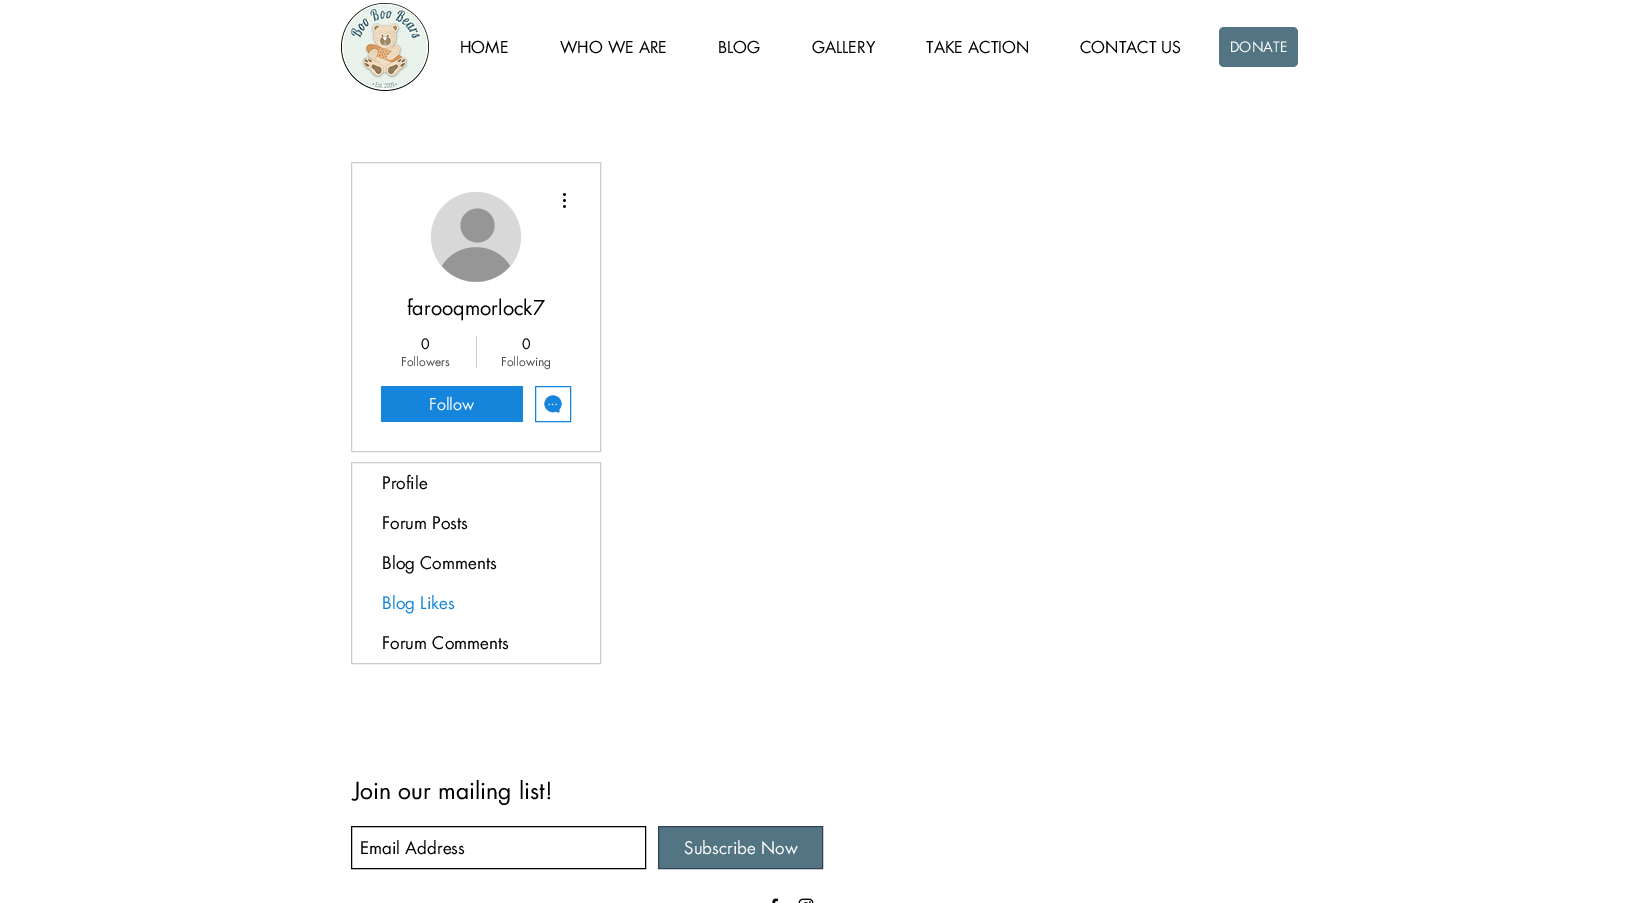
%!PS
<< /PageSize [1642 903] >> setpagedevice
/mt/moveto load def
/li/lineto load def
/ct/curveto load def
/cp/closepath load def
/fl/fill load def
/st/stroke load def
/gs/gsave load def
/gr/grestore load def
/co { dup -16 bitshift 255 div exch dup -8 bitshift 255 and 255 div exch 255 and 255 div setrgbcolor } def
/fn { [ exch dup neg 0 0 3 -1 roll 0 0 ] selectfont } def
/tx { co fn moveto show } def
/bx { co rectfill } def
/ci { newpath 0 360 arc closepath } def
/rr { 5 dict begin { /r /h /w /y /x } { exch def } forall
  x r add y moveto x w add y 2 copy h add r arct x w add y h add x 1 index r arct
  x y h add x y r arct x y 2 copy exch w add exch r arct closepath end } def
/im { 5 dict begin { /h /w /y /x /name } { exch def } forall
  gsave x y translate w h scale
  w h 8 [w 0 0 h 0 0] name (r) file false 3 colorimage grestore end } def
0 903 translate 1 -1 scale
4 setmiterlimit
0 0 1642 903 16#FFFFFF bx
(media/1.raw) 341 3 88 88 im
16#537583 co
1219 27 79 40 5 rr fl
16#CCCCCC co
351.5 162.5 249 289 rectstroke
16#D8D8D8 co
476 237 45 ci fl
16#969696 co
477.5 225.5 17 ci fl
510 266 mt 492 287 460 287 442 266 ct 457 241 495 241 510 266 ct cp fl
(media/2.raw) 563 193 3 15 im
476 336 1 32 16#CCCCCC bx
381 386 142 36 16#1585DB bx
535.5 386.5 35 35 rectstroke
(media/3.raw) 544 395 18 18 im
16#CCCCCC co
351.5 462.5 249 201 rectstroke
16#000000 co
351.5 826.5 294 42 rectstroke
16#537583 co
658.5 826.5 mt 822.5 826.5 li 822.5 868.5 li 658.5 868.5 li cp gs fl gr
16#324158 co
st
(media/4.raw) 772 898 7 5 im
(media/5.raw) 798 898 16 5 im
(HOME) 460 53 /futura-Regular 16 16#000000 tx
(WHO WE ARE) 560 53 /futura-Regular 16 16#000000 tx
(BLOG) 718 53 /futura-Regular 16 16#000000 tx
(GALLERY) 812 53 /futura-Regular 16 16#000000 tx
(TAKE ACTION) 926 53 /futura-Regular 16 16#000000 tx
(CONTACT US) 1080 53 /futura-Regular 16 16#000000 tx
(DONATE) 1230 52 /futura-Regular 14 16#FFFFFF tx
(farooqmorlock7) 407 315 /futura-Regular 20 16#000000 tx
(0) 421 349 /futura-Regular 14 16#000000 tx
(Followers) 401 366 /futura-Regular 12 16#4D4D4D tx
(0) 522 349 /futura-Regular 14 16#000000 tx
(Following) 501 366 /futura-Regular 12 16#4D4D4D tx
(Follow) 429 410 /futura-Regular 16 16#FFFFFF tx
(Profile) 382 489 /futura-Regular 17 16#000000 tx
(Forum Posts) 382 529 /futura-Regular 17 16#000000 tx
(Blog Comments) 382 569 /futura-Regular 17 16#000000 tx
(Blog Likes) 382 609 /futura-Regular 17 16#1585DB tx
(Forum Comments) 382 649 /futura-Regular 17 16#000000 tx
(Join our mailing list!) 353 799 /futura-Regular 23 16#000000 tx
(Email Address) 360 854 /futura-Regular 17 16#000000 tx
(Subscribe Now) 684 854 /futura-Regular 17 16#FFFFFF tx
showpage
